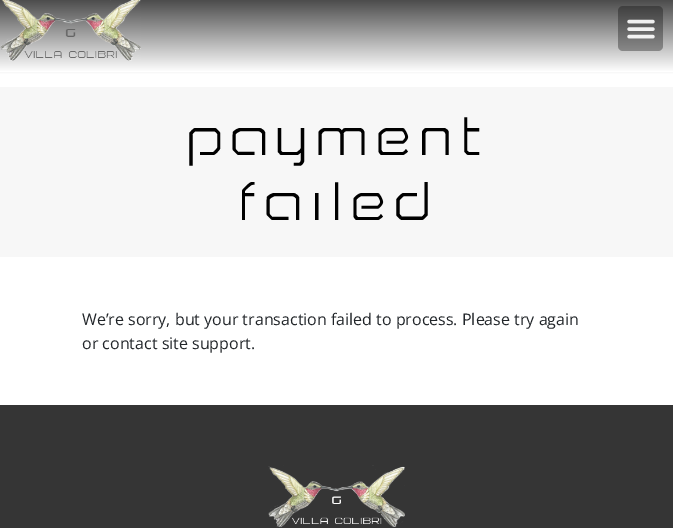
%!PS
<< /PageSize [673 528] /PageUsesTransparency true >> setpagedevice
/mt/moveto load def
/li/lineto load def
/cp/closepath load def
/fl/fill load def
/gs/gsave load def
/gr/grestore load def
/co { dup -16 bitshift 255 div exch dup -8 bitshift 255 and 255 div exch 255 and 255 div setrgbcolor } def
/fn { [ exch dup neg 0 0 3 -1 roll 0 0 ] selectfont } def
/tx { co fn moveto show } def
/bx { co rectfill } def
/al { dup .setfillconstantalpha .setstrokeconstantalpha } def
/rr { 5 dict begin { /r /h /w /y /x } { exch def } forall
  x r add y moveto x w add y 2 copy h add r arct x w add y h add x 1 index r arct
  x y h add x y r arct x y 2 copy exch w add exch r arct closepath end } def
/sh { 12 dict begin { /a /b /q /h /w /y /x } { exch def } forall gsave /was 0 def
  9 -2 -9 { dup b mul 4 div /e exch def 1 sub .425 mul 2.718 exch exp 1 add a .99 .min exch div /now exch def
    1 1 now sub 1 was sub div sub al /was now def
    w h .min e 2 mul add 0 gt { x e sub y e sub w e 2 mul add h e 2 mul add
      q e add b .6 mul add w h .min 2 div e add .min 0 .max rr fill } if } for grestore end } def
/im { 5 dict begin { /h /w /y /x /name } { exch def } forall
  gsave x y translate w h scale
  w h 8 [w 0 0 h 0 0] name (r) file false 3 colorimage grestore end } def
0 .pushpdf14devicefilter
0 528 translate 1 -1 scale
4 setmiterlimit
0 0 673 528 16#FFFFFF bx
16#000000 co
0 -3 673 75 0 1 .09 sh
gs 0 0 mt 673 0 li 673 72 li 0 72 li cp clip newpath
<< /ShadingType 2 /ColorSpace /DeviceRGB /Coords [337 -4 337 72] /Extend [true true] /Function << /FunctionType 2 /Domain [0 1] /C0 [.259 .259 .259] /C1 [1 1 1] /N 1 >> >> shfill gr
(media/1.raw) 0 0 141 61 im
0.35 al
16#0C0C0C co
618 6 45 45 5 rr fl
1 al
(media/2.raw) 627 19 28 20 im
0 87 673 170 16#F7F7F7 bx
0 405 673 123 16#353535 bx
(media/3.raw) 268 465 137 63 im
/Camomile-Regular 54 fn
16#000000 co
184 155 mt 4 0 (PAYMENT) ashow
235 220 mt 4 0 (FAILED) ashow
(We’re sorry, but your transaction failed to process. Please try again) 82 325 /OpenSans-Regular 16 16#212529 tx
(or contact site support.) 82 349 /OpenSans-Regular 16 16#212529 tx
.poppdf14devicefilter showpage
